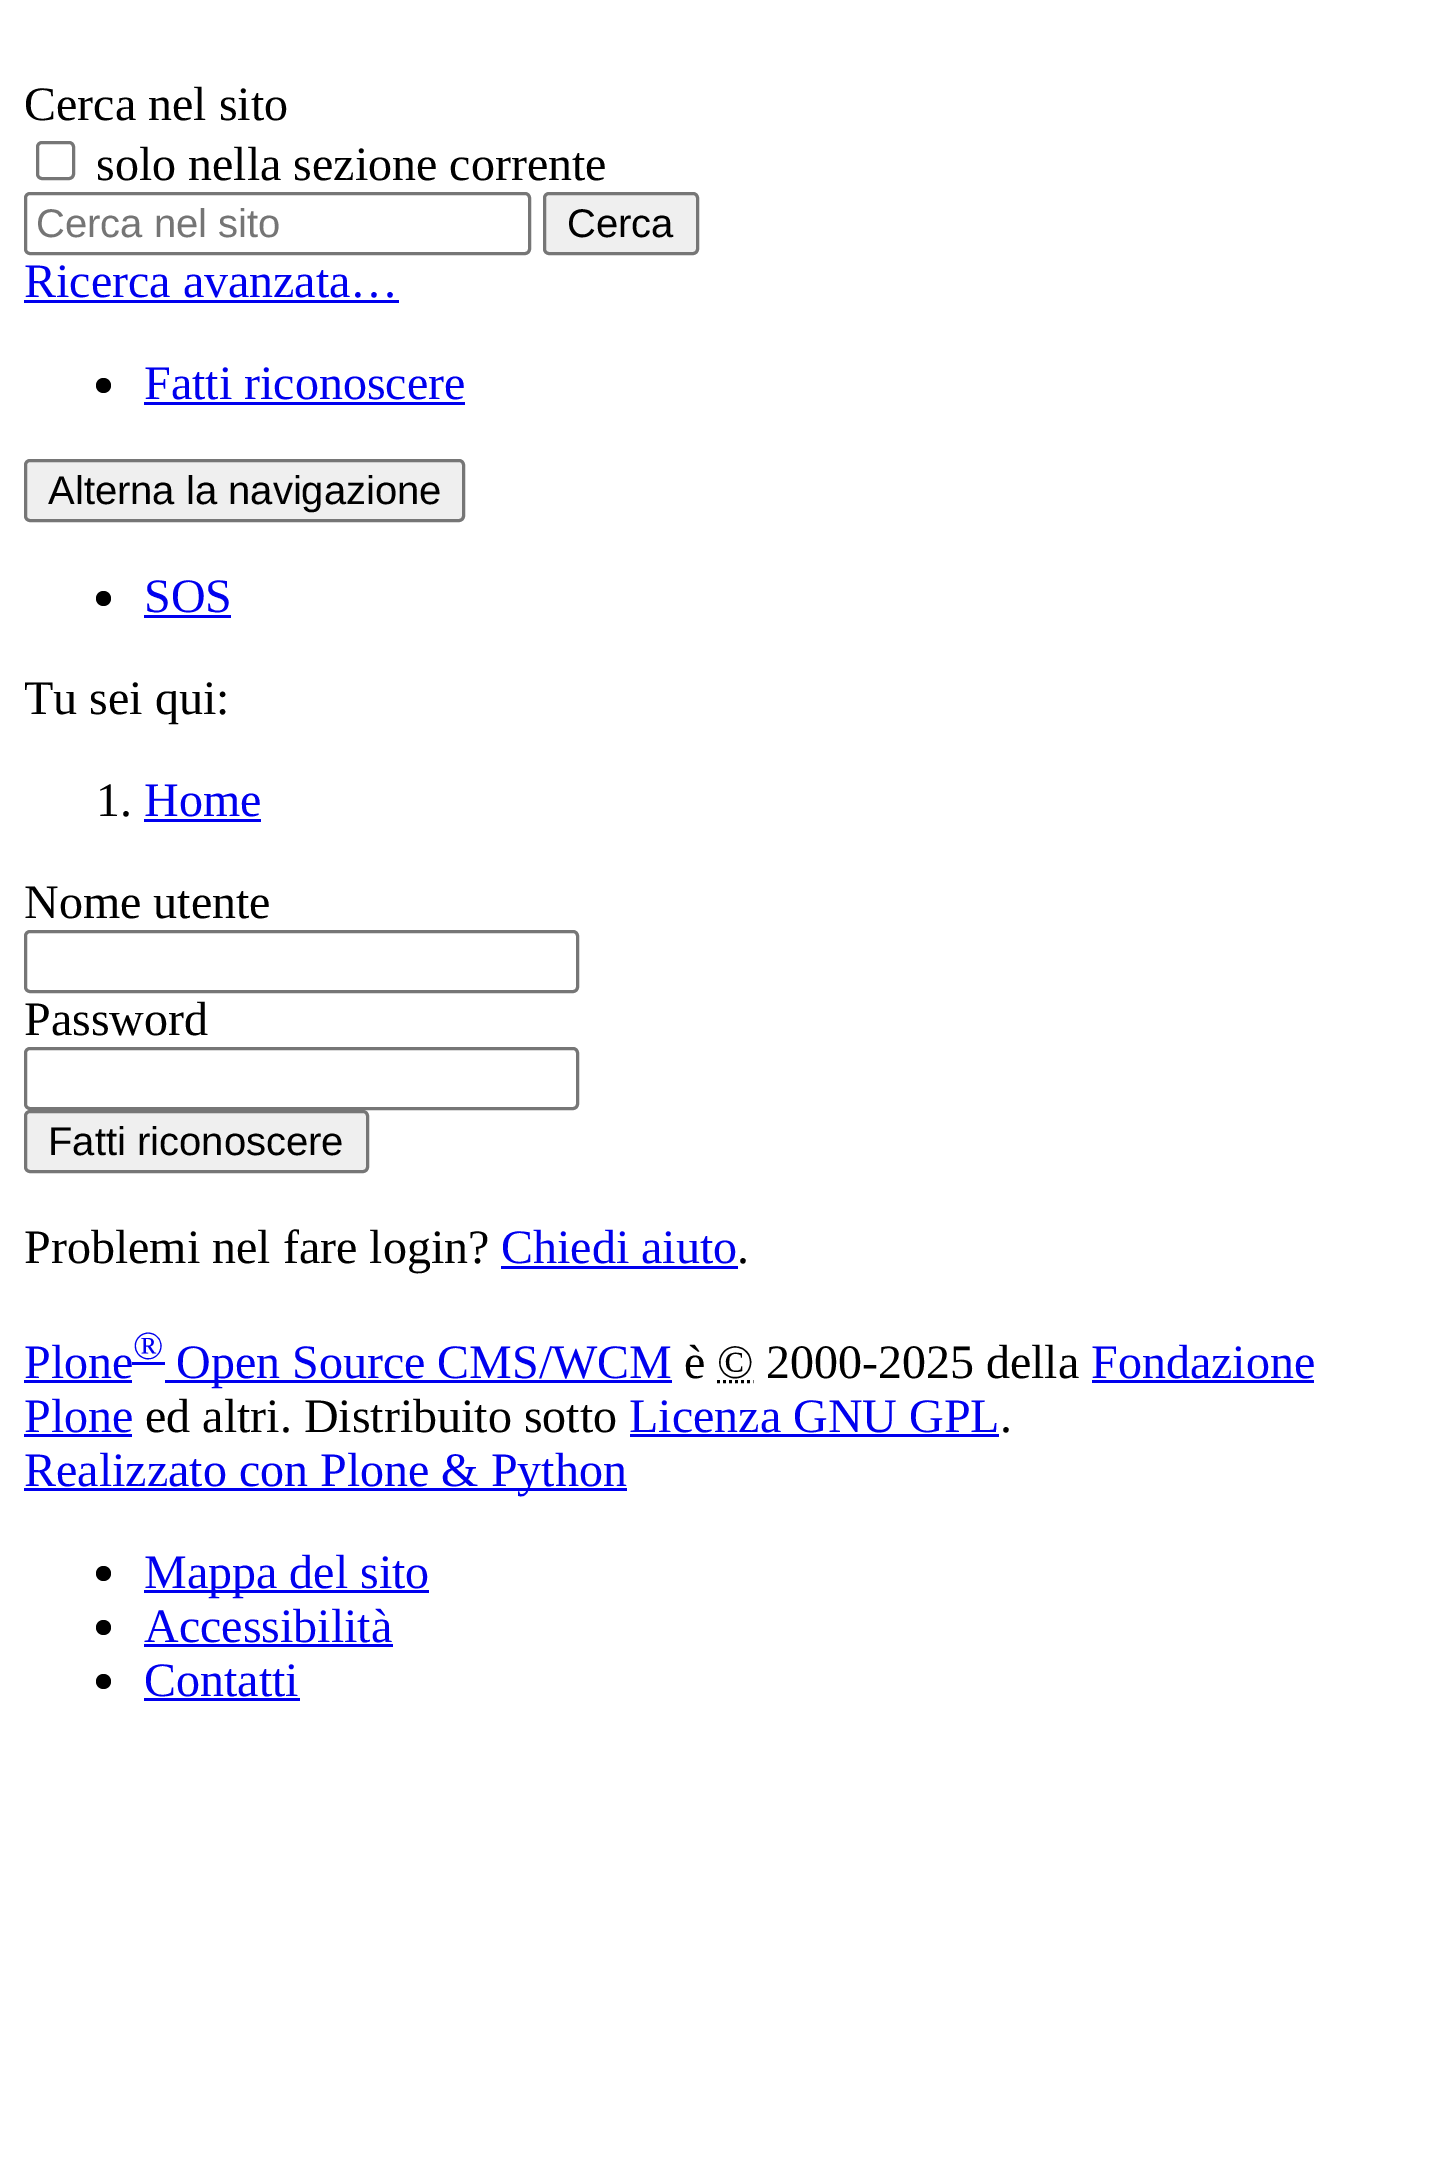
%!PS
<< /PageSize [1450 2159] >> setpagedevice
/mt/moveto load def
/li/lineto load def
/fl/fill load def
/st/stroke load def
/gs/gsave load def
/gr/grestore load def
/lw/setlinewidth load def
/co { dup -16 bitshift 255 div exch dup -8 bitshift 255 and 255 div exch 255 and 255 div setrgbcolor } def
/fn { [ exch dup neg 0 0 3 -1 roll 0 0 ] selectfont } def
/tx { co fn moveto show } def
/bx { co rectfill } def
/ci { newpath 0 360 arc closepath } def
/rr { 5 dict begin { /r /h /w /y /x } { exch def } forall
  x r add y moveto x w add y 2 copy h add r arct x w add y h add x 1 index r arct
  x y h add x y r arct x y 2 copy exch w add exch r arct closepath end } def
0 2159 translate 1 -1 scale
4 setmiterlimit
0 0 1450 2159 16#FFFFFF bx
16#767676 co
3 lw
37.5 142.5 36 36 4.5 rr st
25.5 193.5 504 60 4.5 rr st
16#EFEFEF co
544.5 193.5 153 60 4.5 rr gs fl gr
16#767676 co
st
24 300 375 3 16#0000EE bx
16#000000 co
103.5 385.5 7.5 ci fl
144 402 321 3 16#0000EE bx
16#EFEFEF co
25.5 460.5 438 60 4.5 rr gs fl gr
16#767676 co
st
16#000000 co
103.5 598.5 7.5 ci fl
144 615 87 3 16#0000EE bx
144 819 117 3 16#0000EE bx
16#767676 co
25.5 931.5 552 60 4.5 rr st
25.5 1048.5 552 60 4.5 rr st
16#EFEFEF co
25.5 1111.5 342 60 4.5 rr gs fl gr
16#767676 co
st
501 1266 237 3 16#0000EE bx
24 1380 108 3 16#0000EE bx
132 1362 33 3 16#0000EE bx
165 1380 507 3 16#0000EE bx
1092 1380 222 3 16#0000EE bx
16#000000 co
[3 3] 0 setdash
717 1381.5 mt 753.5 1381.5 li st
24 1434 108 3 16#0000EE bx
630 1434 369 3 16#0000EE bx
24 1488 603 3 16#0000EE bx
16#000000 co
103.5 1573.5 7.5 ci fl
144 1590 285 3 16#0000EE bx
16#000000 co
103.5 1627.5 7.5 ci fl
144 1644 249 3 16#0000EE bx
16#000000 co
103.5 1681.5 7.5 ci fl
144 1698 156 3 16#0000EE bx
(Cerca nel sito) 24 120 /LiberationSerif-Regular 48 16#000000 tx
(solo nella sezione corrente) 96 180 /LiberationSerif-Regular 48 16#000000 tx
(Cerca nel sito) 36 237 /LiberationSans-Regular 40 16#757575 tx
(Cerca) 567 237 /LiberationSans-Regular 40 16#000000 tx
(Ricerca avanzata…) 24 297 /LiberationSerif-Regular 48 16#0000EE tx
(Fatti riconoscere) 144 399 /LiberationSerif-Regular 48 16#0000EE tx
(Alterna la navigazione) 48 504 /LiberationSans-Regular 40 16#000000 tx
(SOS) 144 612 /LiberationSerif-Regular 48 16#0000EE tx
(Tu sei qui:) 24 714 /LiberationSerif-Regular 48 16#000000 tx
(1.) 96 816 /LiberationSerif-Regular 48 16#000000 tx
(Home) 144 816 /LiberationSerif-Regular 48 16#0000EE tx
(Nome utente) 24 918 /LiberationSerif-Regular 48 16#000000 tx
(Password) 24 1035 /LiberationSerif-Regular 48 16#000000 tx
(Fatti riconoscere) 48 1155 /LiberationSans-Regular 40 16#000000 tx
(Problemi nel fare login?) 24 1263 /LiberationSerif-Regular 48 16#000000 tx
(Chiedi aiuto) 501 1263 /LiberationSerif-Regular 48 16#0000EE tx
(.) 737 1263 /LiberationSerif-Regular 48 16#000000 tx
(Plone) 24 1378 /LiberationSerif-Regular 48 16#0000EE tx
(®) 133 1359 /LiberationSerif-Regular 40 16#0000EE tx
(Open Source CMS/WCM) 176 1378 /LiberationSerif-Regular 48 16#0000EE tx
(è © 2000-2025 della) 684 1378 /LiberationSerif-Regular 48 16#000000 tx
(Fondazione) 1091 1378 /LiberationSerif-Regular 48 16#0000EE tx
(Plone) 24 1432 /LiberationSerif-Regular 48 16#0000EE tx
(ed altri. Distribuito sotto) 145 1432 /LiberationSerif-Regular 48 16#000000 tx
(Licenza GNU GPL) 629 1432 /LiberationSerif-Regular 48 16#0000EE tx
(.) 1000 1432 /LiberationSerif-Regular 48 16#000000 tx
(Realizzato con Plone & Python) 24 1486 /LiberationSerif-Regular 48 16#0000EE tx
(Mappa del sito) 144 1588 /LiberationSerif-Regular 48 16#0000EE tx
(Accessibilità) 144 1642 /LiberationSerif-Regular 48 16#0000EE tx
(Contatti) 144 1696 /LiberationSerif-Regular 48 16#0000EE tx
showpage
